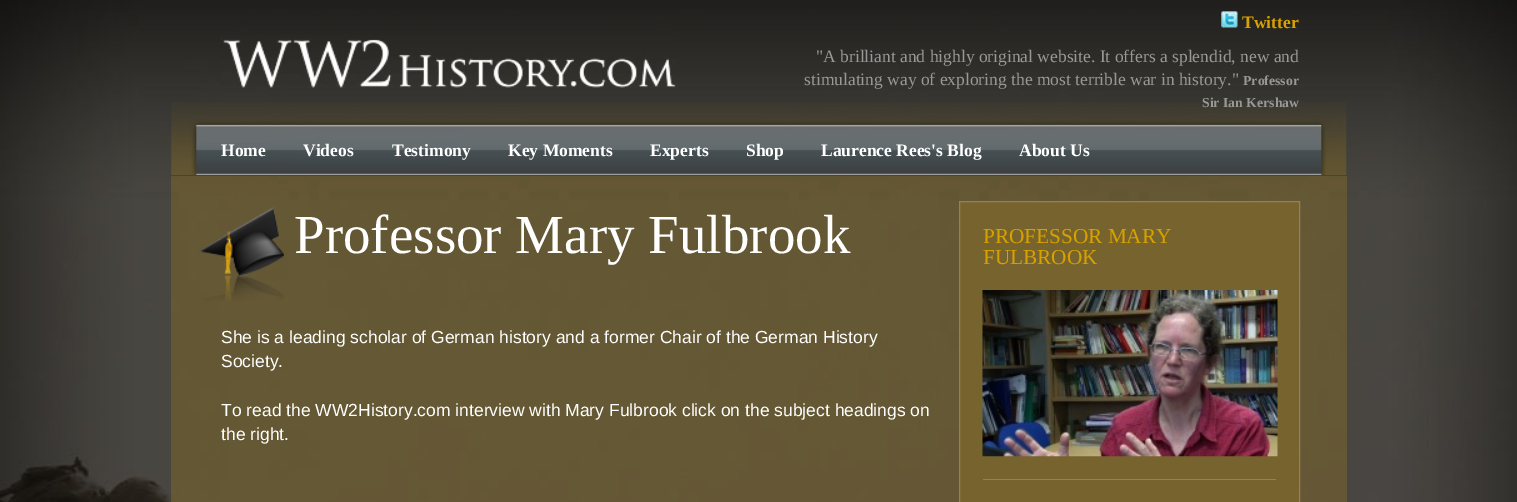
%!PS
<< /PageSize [1517 502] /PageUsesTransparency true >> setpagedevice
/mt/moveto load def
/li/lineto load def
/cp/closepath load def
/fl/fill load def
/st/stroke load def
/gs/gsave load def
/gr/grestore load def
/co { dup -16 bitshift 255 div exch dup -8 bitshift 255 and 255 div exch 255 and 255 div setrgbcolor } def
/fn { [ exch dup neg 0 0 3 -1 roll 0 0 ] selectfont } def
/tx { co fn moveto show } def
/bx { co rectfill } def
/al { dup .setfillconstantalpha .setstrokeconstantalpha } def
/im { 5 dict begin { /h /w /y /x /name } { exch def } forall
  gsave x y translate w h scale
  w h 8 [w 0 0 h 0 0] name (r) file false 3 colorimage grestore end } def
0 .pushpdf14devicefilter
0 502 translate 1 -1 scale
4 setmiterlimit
0 0 1517 502 16#FFFFFF bx
(media/1.raw) 0 0 1517 502 im
(media/2.raw) 171 102 1176 73 im
(media/3.raw) 1221 11 17 17 im
(media/4.raw) 221 36 455 52 im
0.2 al
171 176 1176 326 16#D7A000 bx
1 al
(media/5.raw) 200 207 84 94 im
16#77632E co
959.5 201.5 mt 1299.5 201.5 li 1299.5 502.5 li 959.5 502.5 li cp gs fl gr
16#918257 co
st
(media/6.raw) 982 290 296 167 im
983 479 293 1 16#918257 bx
(Twitter) 1242 28 /LiberationSerif-Bold 17.5 16#D7A100 tx
("A brilliant and highly original website. It offers a splendid, new and) 816 62 /LiberationSerif-Regular 17.5 16#989896 tx
(stimulating way of exploring the most terrible war in history.") 804 85 /LiberationSerif-Regular 17.5 16#989896 tx
(Professor) 1243 85 /LiberationSerif-Bold 13.75 16#989896 tx
(Sir Ian Kershaw) 1202 107 /LiberationSerif-Bold 13.75 16#989896 tx
(Home) 221 156 /LiberationSerif-Bold 17.5 16#FFFFFF tx
(Videos) 303 156 /LiberationSerif-Bold 17.5 16#FFFFFF tx
(Testimony) 392 156 /LiberationSerif-Bold 17.5 16#FFFFFF tx
(Key Moments) 508 156 /LiberationSerif-Bold 17.5 16#FFFFFF tx
(Experts) 650 156 /LiberationSerif-Bold 17.5 16#FFFFFF tx
(Shop) 746 156 /LiberationSerif-Bold 17.5 16#FFFFFF tx
(Laurence Rees's Blog) 821 156 /LiberationSerif-Bold 17.5 16#FFFFFF tx
(About Us) 1019 156 /LiberationSerif-Bold 17.5 16#FFFFFF tx
(Professor Mary Fulbrook) 294 253 /LiberationSerif-Regular 55 16#FFFFFF tx
(She is a leading scholar of German history and a former Chair of the German History) 221 343 /LiberationSans-Regular 17.5 16#FFFFFF tx
(Society.) 221 367 /LiberationSans-Regular 17.5 16#FFFFFF tx
(To read the WW2History.com interview with Mary Fulbrook click on the subject headings on) 221 416 /LiberationSans-Regular 17.5 16#FFFFFF tx
(the right.) 221 440 /LiberationSans-Regular 17.5 16#FFFFFF tx
(PROFESSOR MARY) 983 243 /LiberationSerif-Regular 21.25 16#D7A100 tx
(FULBROOK) 983 264 /LiberationSerif-Regular 21.25 16#D7A100 tx
.poppdf14devicefilter showpage
